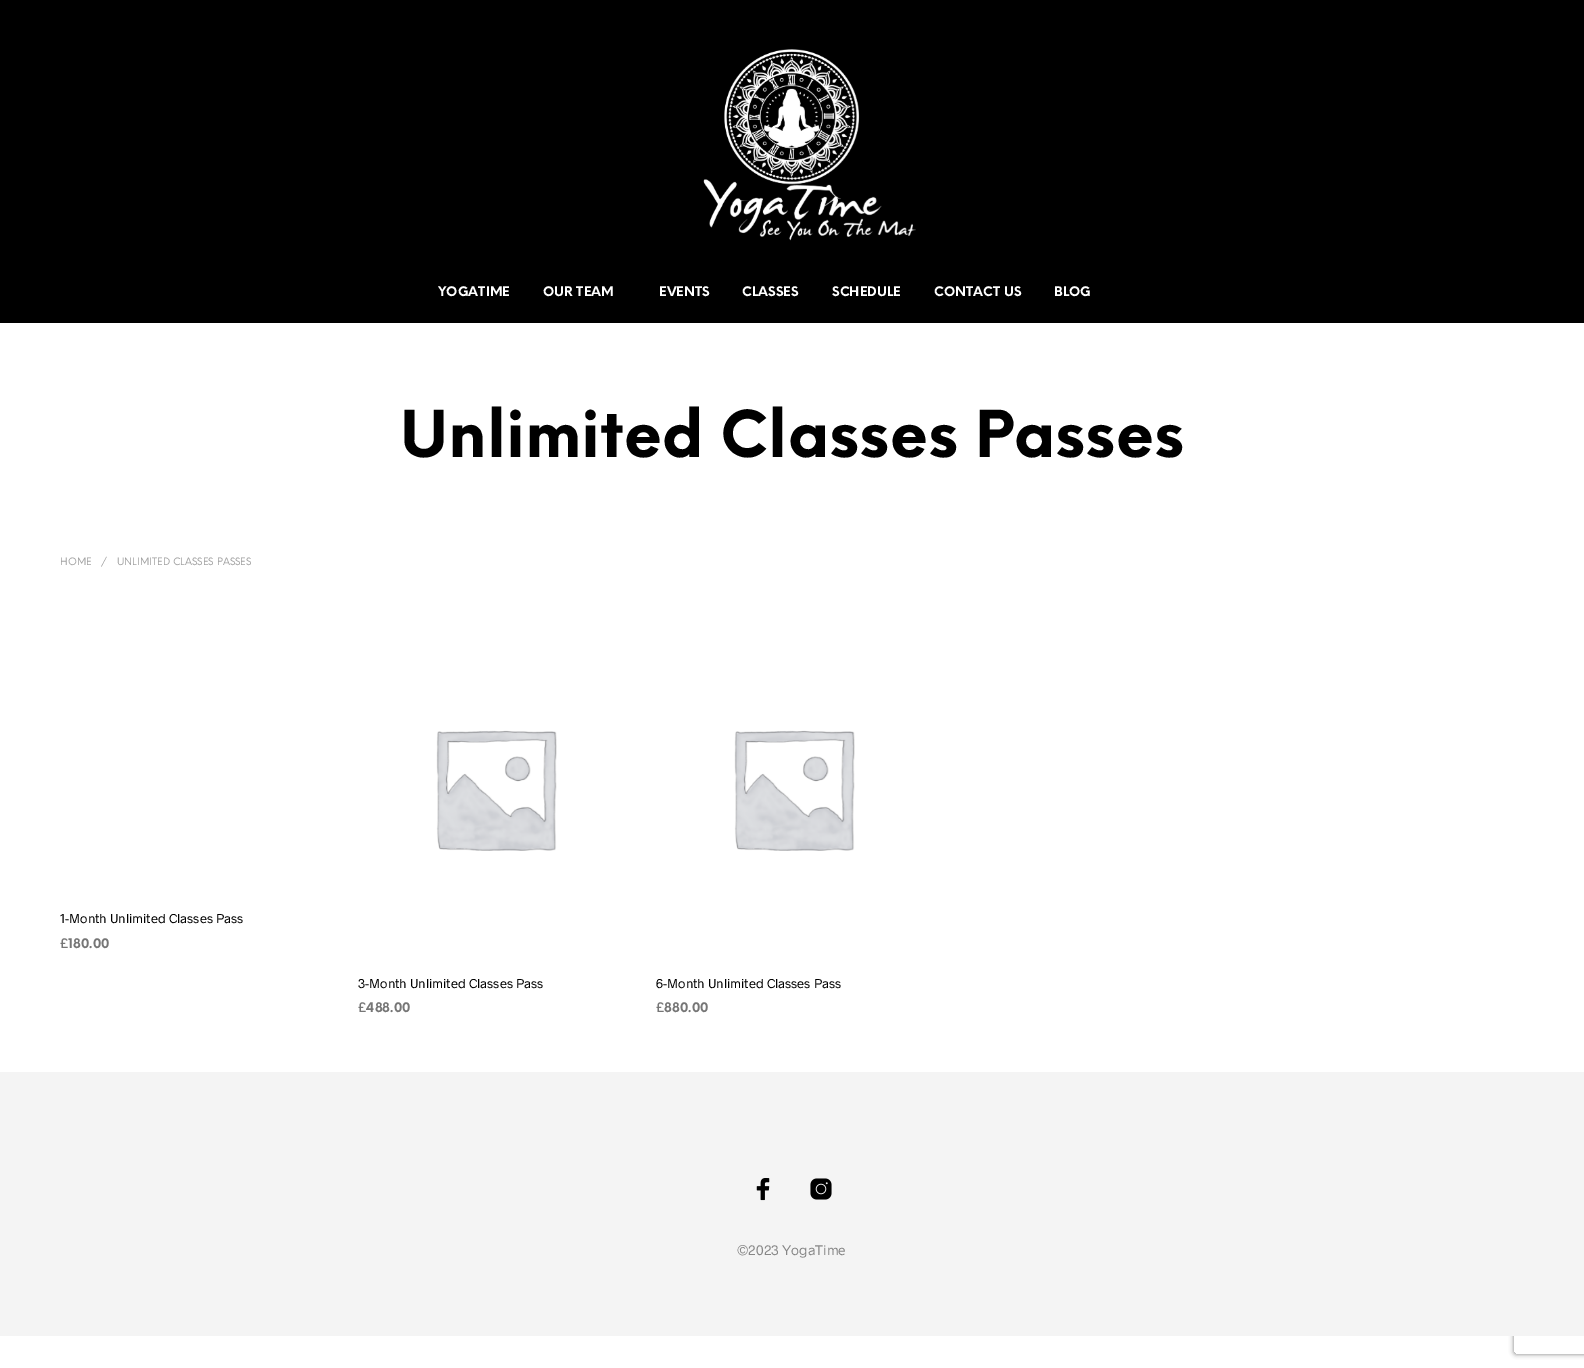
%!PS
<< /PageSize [1584 1368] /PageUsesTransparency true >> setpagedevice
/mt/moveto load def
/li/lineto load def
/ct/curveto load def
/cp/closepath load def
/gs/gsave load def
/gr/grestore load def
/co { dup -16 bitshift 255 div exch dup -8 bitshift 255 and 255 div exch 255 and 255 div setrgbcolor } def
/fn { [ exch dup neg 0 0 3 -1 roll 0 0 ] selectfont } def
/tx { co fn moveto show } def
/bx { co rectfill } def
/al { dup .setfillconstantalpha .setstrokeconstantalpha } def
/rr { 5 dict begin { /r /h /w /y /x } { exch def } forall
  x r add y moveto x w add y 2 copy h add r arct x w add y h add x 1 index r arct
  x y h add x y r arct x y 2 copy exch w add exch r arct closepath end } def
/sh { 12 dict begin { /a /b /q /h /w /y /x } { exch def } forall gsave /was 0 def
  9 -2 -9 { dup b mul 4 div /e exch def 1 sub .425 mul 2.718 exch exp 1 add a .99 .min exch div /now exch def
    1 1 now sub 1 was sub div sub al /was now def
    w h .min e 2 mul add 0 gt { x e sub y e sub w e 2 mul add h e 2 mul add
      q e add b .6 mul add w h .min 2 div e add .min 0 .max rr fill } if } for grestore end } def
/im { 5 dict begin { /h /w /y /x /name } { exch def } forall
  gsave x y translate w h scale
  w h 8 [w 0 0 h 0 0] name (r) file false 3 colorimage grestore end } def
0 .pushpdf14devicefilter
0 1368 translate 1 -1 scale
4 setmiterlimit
0 0 1584 1368 16#FFFFFF bx
0 0 1584 323 16#000000 bx
(media/1.raw) 703 49 213 192 im
(media/2.raw) 436 730 121 121 im
(media/2.raw) 734 730 121 121 im
gs
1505 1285 mt 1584 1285 li 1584 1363 li 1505 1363 li cp 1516 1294 mt 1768 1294 li 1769 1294 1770 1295 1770 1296 ct 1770 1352 li 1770 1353 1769 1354 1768 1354 ct 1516 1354 li 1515 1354 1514 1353 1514 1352 ct 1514 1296 li 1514 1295 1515 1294 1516 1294 ct cp eoclip newpath
16#808080 co
1514 1294 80 60 2 2.5 1 sh
gr
0 1072 1584 264 16#F4F4F4 bx
(media/3.raw) 756 1178 14 23 im
(media/4.raw) 810 1178 22 22 im
(YOGATIME) 438 296 /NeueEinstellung-Bold 13 16#FFFFFF tx
(OUR TEAM) 543 296 /NeueEinstellung-Bold 13 16#FFFFFF tx
(EVENTS) 659 296 /NeueEinstellung-Bold 13 16#FFFFFF tx
(CLASSES) 742 296 /NeueEinstellung-Bold 13 16#FFFFFF tx
(SCHEDULE) 832 296 /NeueEinstellung-Bold 13 16#FFFFFF tx
(CONTACT US) 934 296 /NeueEinstellung-Bold 13 16#FFFFFF tx
(BLOG) 1054 296 /NeueEinstellung-Bold 13 16#FFFFFF tx
(Unlimited Classes Passes) 400 457 /NeueEinstellung-Bold 63.1 16#000000 tx
(HOME) 60 565 /NeueEinstellung-Regular 10 16#A1A1A1 tx
(/) 101 565 /NeueEinstellung-Regular 10 16#A1A1A1 tx
(UNLIMITED CLASSES PASSES) 117 565 /NeueEinstellung-Regular 10 16#A1A1A1 tx
(1-Month Unlimited Classes Pass) 60 923 /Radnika-Regular 13 16#000000 tx
(£180.00) 60 948 /NeueEinstellung-Bold 13 16#767676 tx
(3-Month Unlimited Classes Pass) 358 988 /Radnika-Regular 13 16#000000 tx
(£488.00) 358 1012 /NeueEinstellung-Bold 13 16#767676 tx
(6-Month Unlimited Classes Pass) 656 988 /Radnika-Regular 13 16#000000 tx
(£880.00) 656 1012 /NeueEinstellung-Bold 13 16#767676 tx
(©2023 YogaTime) 737 1255 /Radnika-Regular 14 16#868686 tx
.poppdf14devicefilter showpage
